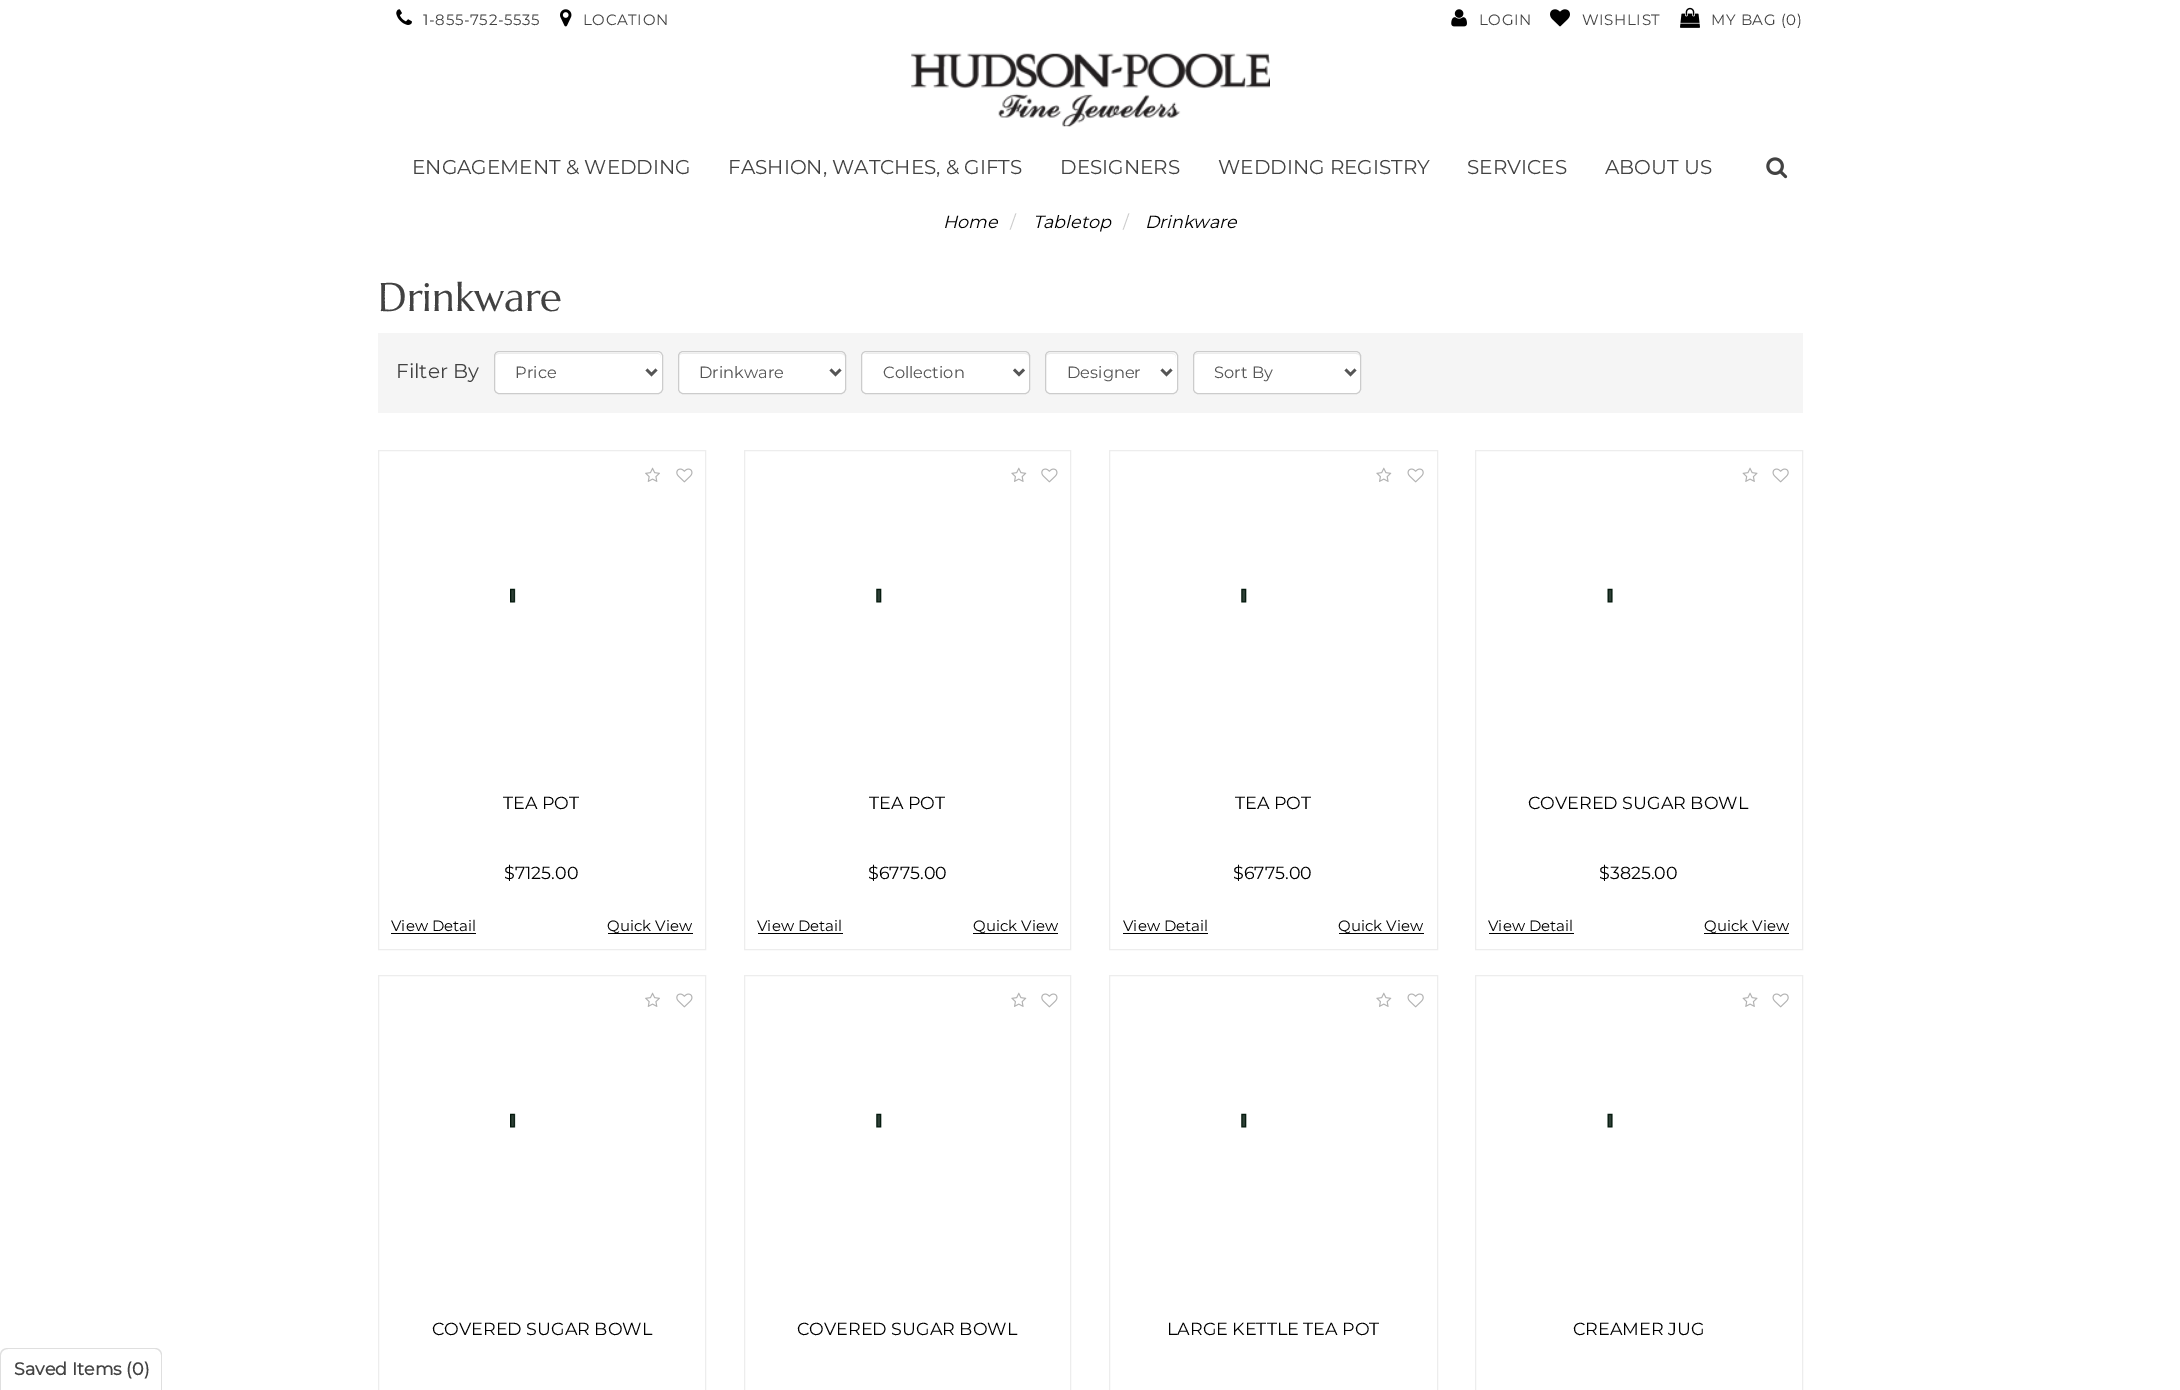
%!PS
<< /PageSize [2180 1390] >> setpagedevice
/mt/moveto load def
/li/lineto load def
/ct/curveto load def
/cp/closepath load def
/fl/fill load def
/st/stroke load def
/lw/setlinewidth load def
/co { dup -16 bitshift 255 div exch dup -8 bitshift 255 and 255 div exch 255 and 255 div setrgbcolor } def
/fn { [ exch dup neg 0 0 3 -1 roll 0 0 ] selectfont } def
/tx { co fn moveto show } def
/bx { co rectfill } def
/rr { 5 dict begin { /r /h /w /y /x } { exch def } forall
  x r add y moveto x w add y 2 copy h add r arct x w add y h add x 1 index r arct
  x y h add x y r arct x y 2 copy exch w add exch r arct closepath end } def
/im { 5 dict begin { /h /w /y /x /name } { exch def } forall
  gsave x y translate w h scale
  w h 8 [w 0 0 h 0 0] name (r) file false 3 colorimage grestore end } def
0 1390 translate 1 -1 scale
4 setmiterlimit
0 0 2180 1390 16#FFFFFF bx
(media/1.raw) 396 9 16 16 im
(media/2.raw) 560 9 12 18 im
(media/3.raw) 1451 9 16 18 im
(media/4.raw) 1550 9 20 18 im
(media/5.raw) 1680 7 20 21 im
(media/6.raw) 911 53 359 74 im
(media/7.raw) 1766 157 22 22 im
378 333 1425 80 16#F5F5F5 bx
16#FFFFFF co
494 351 169 43 5 rr fl
16#ECECEC co
499 354 mt 658 354 li 660 354 661 355 661 358 ct 661 357 li 661 355 659 353 657 353 ct 499 353 li 497 353 495 355 495 357 ct 495 358 li 495 355 497 354 499 354 ct cp fl
16#CCCCCC co
494.5 351.5 168 42 4.5 rr st
16#555555 co
2.5 lw
646.5 369.5 mt 651.5 374.5 li 656.5 369.5 li st
16#FFFFFF co
678 351 168 43 5 rr fl
16#ECECEC co
682 354 mt 841 354 li 843 354 845 355 845 358 ct 845 357 li 845 355 843 353 841 353 ct 683 353 li 681 353 679 355 679 357 ct 679 358 li 679 355 680 354 682 354 ct cp fl
16#CCCCCC co
1 lw
678.5 351.5 167 42 4.5 rr st
16#555555 co
2.5 lw
830.5 369.5 mt 835.5 374.5 li 840.5 369.5 li st
16#FFFFFF co
861 351 169 43 5 rr fl
16#ECECEC co
866 354 mt 1025 354 li 1027 354 1029 355 1029 358 ct 1029 357 li 1029 355 1027 353 1025 353 ct 867 353 li 866 353 865 354 864 354 ct cp fl
16#CCCCCC co
1 lw
861.5 351.5 168 42 4.5 rr st
16#555555 co
2.5 lw
1014 369.5 mt 1019 374.5 li 1024 369.5 li st
16#FFFFFF co
1045 351 133 43 5 rr fl
16#ECECEC co
1050 354 mt 1172 354 li 1175 354 1176 355 1176 358 ct 1176 357 li 1176 355 1174 353 1172 353 ct 1050 353 li 1048 353 1046 355 1046 357 ct 1046 358 li 1046 355 1048 354 1050 354 ct cp fl
16#CCCCCC co
1 lw
1045.5 351.5 132 42 4.5 rr st
16#555555 co
2.5 lw
1161.5 369.5 mt 1166.5 374.5 li 1171.5 369.5 li st
16#FFFFFF co
1193 351 168 43 5 rr fl
16#ECECEC co
1198 354 mt 1356 354 li 1358 354 1360 355 1360 358 ct 1360 357 li 1360 355 1358 353 1356 353 ct 1198 353 li 1196 353 1194 355 1194 357 ct 1194 358 li 1194 355 1195 354 1198 354 ct cp fl
16#CCCCCC co
1 lw
1193.5 351.5 167 42 4.5 rr st
16#555555 co
2.5 lw
1345.5 369.5 mt 1350.5 374.5 li 1355.5 369.5 li st
16#EDEDED co
1 lw
378.5 450.5 327 499 rectstroke
(media/8.raw) 645 467 15 15 im
(media/9.raw) 676 468 17 15 im
(media/10.raw) 510 588 6 15 im
391 933 85 1 16#000000 bx
608 933 85 1 16#000000 bx
16#EDEDED co
744.5 450.5 326 499 rectstroke
(media/11.raw) 1011 467 16 15 im
(media/9.raw) 1041 468 17 15 im
(media/12.raw) 876 588 6 15 im
758 933 85 1 16#000000 bx
973 933 85 1 16#000000 bx
16#EDEDED co
1109.5 450.5 328 499 rectstroke
(media/11.raw) 1376 467 16 15 im
(media/13.raw) 1407 468 17 15 im
(media/12.raw) 1241 588 6 15 im
1123 933 85 1 16#000000 bx
1339 933 85 1 16#000000 bx
16#EDEDED co
1475.5 450.5 327 499 rectstroke
(media/14.raw) 1742 467 16 15 im
(media/13.raw) 1772 468 17 15 im
(media/15.raw) 1607 588 6 15 im
1489 933 85 1 16#000000 bx
1704 933 85 1 16#000000 bx
16#EDEDED co
378.5 975.5 327 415 rectstroke
(media/8.raw) 645 992 15 15 im
(media/9.raw) 676 993 17 15 im
(media/10.raw) 510 1113 6 15 im
744.5 975.5 326 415 rectstroke
(media/11.raw) 1011 992 16 15 im
(media/9.raw) 1041 993 17 15 im
(media/12.raw) 876 1113 6 15 im
1109.5 975.5 328 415 rectstroke
(media/11.raw) 1376 992 16 15 im
(media/13.raw) 1407 993 17 15 im
(media/12.raw) 1241 1113 6 15 im
1475.5 975.5 327 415 rectstroke
(media/14.raw) 1742 992 16 15 im
(media/13.raw) 1772 993 17 15 im
(media/15.raw) 1607 1113 6 15 im
16#DFDFDF co
8 1348 mt 155 1348 li 159 1348 162 1351 162 1355 ct 162 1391 li 0 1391 li 0 1355 li 0 1351 3 1348 8 1348 ct cp 8 1349 mt 155 1349 li 158 1349 161 1352 161 1355 ct 161 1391 li 1 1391 li 1 1355 li 1 1352 4 1349 8 1349 ct cp eofill
/Montserrat-Regular 15 fn
16#424242 co
423 25 mt .6 0 (1-855-752-5535) ashow
583 25 mt .6 0 (LOCATION) ashow
1479 25 mt .6 0 (LOGIN) ashow
1582 25 mt .6 0 (WISHLIST) ashow
1711 25 mt .6 0 (MY BAG \(0\)) ashow
(ENGAGEMENT & WEDDING) 412 174 /Montserrat-Regular 20 16#424242 tx
(FASHION, WATCHES, & GIFTS) 728 174 /Montserrat-Regular 20 16#424242 tx
(DESIGNERS) 1060 174 /Montserrat-Regular 20 16#424242 tx
(WEDDING REGISTRY) 1218 174 /Montserrat-Regular 20 16#424242 tx
(SERVICES) 1467 174 /Montserrat-Regular 20 16#424242 tx
(ABOUT US) 1605 174 /Montserrat-Regular 20 16#424242 tx
(Home) 943 228 /Montserrat-Italic 17.5 16#000000 tx
(/) 1010 228 /Montserrat-Regular 17.5 16#CCCCCC tx
(Tabletop) 1033 228 /Montserrat-Italic 17.5 16#000000 tx
(/) 1123 228 /Montserrat-Regular 17.5 16#CCCCCC tx
(Drinkware) 1145 228 /Montserrat-Italic 17.5 16#000000 tx
(Drinkware) 378 311 /Marcellus-Regular 40 16#424242 tx
(Filter By) 396 378 /Montserrat-Regular 20 16#424242 tx
(Price) 515 378 /Montserrat-Regular 16.25 16#555555 tx
(Drinkware) 699 378 /Montserrat-Regular 16.25 16#555555 tx
(Collection) 883 378 /Montserrat-Regular 16.25 16#555555 tx
(Designer) 1067 378 /Montserrat-Regular 16.25 16#555555 tx
(Sort By) 1214 378 /Montserrat-Regular 16.25 16#555555 tx
(TEA POT) 503 809 /Montserrat-Regular 17.5 16#000000 tx
($7125.00) 504 879 /Montserrat-Regular 17.5 16#000000 tx
(View Detail) 391 931 /Montserrat-Regular 15 16#000000 tx
(Quick View) 607 931 /Montserrat-Regular 15 16#000000 tx
(TEA POT) 869 809 /Montserrat-Regular 17.5 16#000000 tx
($6775.00) 868 879 /Montserrat-Regular 17.5 16#000000 tx
(View Detail) 757 931 /Montserrat-Regular 15 16#000000 tx
(Quick View) 973 931 /Montserrat-Regular 15 16#000000 tx
(TEA POT) 1235 809 /Montserrat-Regular 17.5 16#000000 tx
($6775.00) 1233 879 /Montserrat-Regular 17.5 16#000000 tx
(View Detail) 1123 931 /Montserrat-Regular 15 16#000000 tx
(Quick View) 1338 931 /Montserrat-Regular 15 16#000000 tx
(COVERED SUGAR BOWL) 1528 809 /Montserrat-Regular 17.5 16#000000 tx
($3825.00) 1599 879 /Montserrat-Regular 17.5 16#000000 tx
(View Detail) 1488 931 /Montserrat-Regular 15 16#000000 tx
(Quick View) 1704 931 /Montserrat-Regular 15 16#000000 tx
(COVERED SUGAR BOWL) 432 1335 /Montserrat-Regular 17.5 16#000000 tx
(COVERED SUGAR BOWL) 797 1335 /Montserrat-Regular 17.5 16#000000 tx
(LARGE KETTLE TEA POT) 1167 1335 /Montserrat-Regular 17.5 16#000000 tx
(CREAMER JUG) 1573 1335 /Montserrat-Regular 17.5 16#000000 tx
(Saved Items \(0\)) 14 1375 /Montserrat-Bold 17.5 16#424242 tx
showpage
